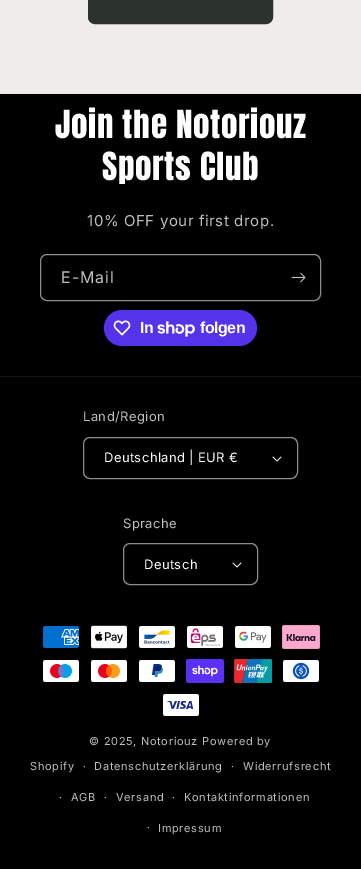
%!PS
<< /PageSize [361 869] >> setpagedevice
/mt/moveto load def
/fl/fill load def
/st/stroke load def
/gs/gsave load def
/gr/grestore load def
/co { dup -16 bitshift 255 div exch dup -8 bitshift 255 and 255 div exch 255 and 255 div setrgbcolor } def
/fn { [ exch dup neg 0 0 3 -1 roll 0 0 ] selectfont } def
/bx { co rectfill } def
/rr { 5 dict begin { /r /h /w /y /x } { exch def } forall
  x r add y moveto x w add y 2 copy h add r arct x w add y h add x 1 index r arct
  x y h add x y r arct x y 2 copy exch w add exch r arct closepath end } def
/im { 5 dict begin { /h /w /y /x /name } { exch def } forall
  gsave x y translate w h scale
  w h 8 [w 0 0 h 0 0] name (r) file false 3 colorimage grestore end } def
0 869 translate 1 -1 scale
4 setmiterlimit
0 0 361 869 16#EFECEC bx
16#2C332F co
88.5 -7.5 184 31 6.5 rr gs fl gr
st
0 94 361 775 16#000000 bx
16#8C8C8C co
40.5 254.5 280 46 6.5 rr st
(media/1.raw) 291 272 15 11 im
16#5433EB co
104 310 153 36 18 rr fl
(media/2.raw) 113 320 18 16 im
(media/3.raw) 157 321 38 16 im
0 376 361 1 16#141414 bx
(media/4.raw) 272 456 10 6 im
16#8C8C8C co
83.5 437.5 214 41 6.5 rr st
(media/4.raw) 232 562 10 6 im
123.5 543.5 134 41 6.5 rr st
(media/5.raw) 43 626 36 22 im
(media/6.raw) 91 625 36 24 im
(media/7.raw) 139 626 36 22 im
(media/8.raw) 187 626 36 22 im
(media/9.raw) 235 626 36 22 im
(media/10.raw) 282 625 38 24 im
(media/11.raw) 43 660 36 22 im
(media/12.raw) 91 660 36 22 im
(media/13.raw) 139 660 36 22 im
(media/14.raw) 186 659 38 24 im
(media/15.raw) 234 659 38 24 im
(media/16.raw) 283 660 36 22 im
(media/17.raw) 163 694 36 22 im
/Anton-Regular 33 fn
16#FFFFFF co
55 138 mt .7 0 (Join the Notoriouz) ashow
102 180 mt .7 0 (Sports Club) ashow
/Inter-Regular 15 fn
16#BFBFBF co
87 226 mt .6 0 (10% OFF your first drop.) ashow
/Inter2-Regular 16 fn
61 283 mt 1 0 (E-Mail) ashow
/LiberationSans-Bold 16 fn
16#FFFFFF co
140 333 mt -.5 0 (In) ashow
200 333 mt -.5 0 (folgen) ashow
/Inter-Regular 13 fn
16#BFBFBF co
83 421 mt .4 0 (Land/Region) ashow
16#FFFFFF co
104 462 mt .4 0 (Deutschland | EUR €) ashow
16#BFBFBF co
123 528 mt .4 0 (Sprache) ashow
16#FFFFFF co
144 569 mt .4 0 (Deutsch) ashow
/Inter-Regular 11 fn
16#BFBFBF co
89 745 mt .7 0 (© 2025, Notoriouz Powered by) ashow
30 770 mt .7 0 (Shopify) ashow
/Inter-Regular 10 fn
83 770 mt .7 0 (·) ashow
/Inter-Regular 11 fn
94 770 mt .7 0 (Datenschutzerklärung) ashow
/Inter-Regular 10 fn
231 770 mt .7 0 (·) ashow
/Inter-Regular 11 fn
243 770 mt .7 0 (Widerrufsrecht) ashow
/Inter-Regular 10 fn
59 801 mt .7 0 (·) ashow
/Inter-Regular 11 fn
71 801 mt .7 0 (AGB) ashow
/Inter-Regular 10 fn
104 801 mt .7 0 (·) ashow
/Inter-Regular 11 fn
116 801 mt .7 0 (Versand) ashow
/Inter-Regular 10 fn
172 801 mt .7 0 (·) ashow
/Inter-Regular 11 fn
184 801 mt .7 0 (Kontaktinformationen) ashow
/Inter-Regular 10 fn
147 831 mt .7 0 (·) ashow
/Inter-Regular 11 fn
158 832 mt .7 0 (Impressum) ashow
showpage
